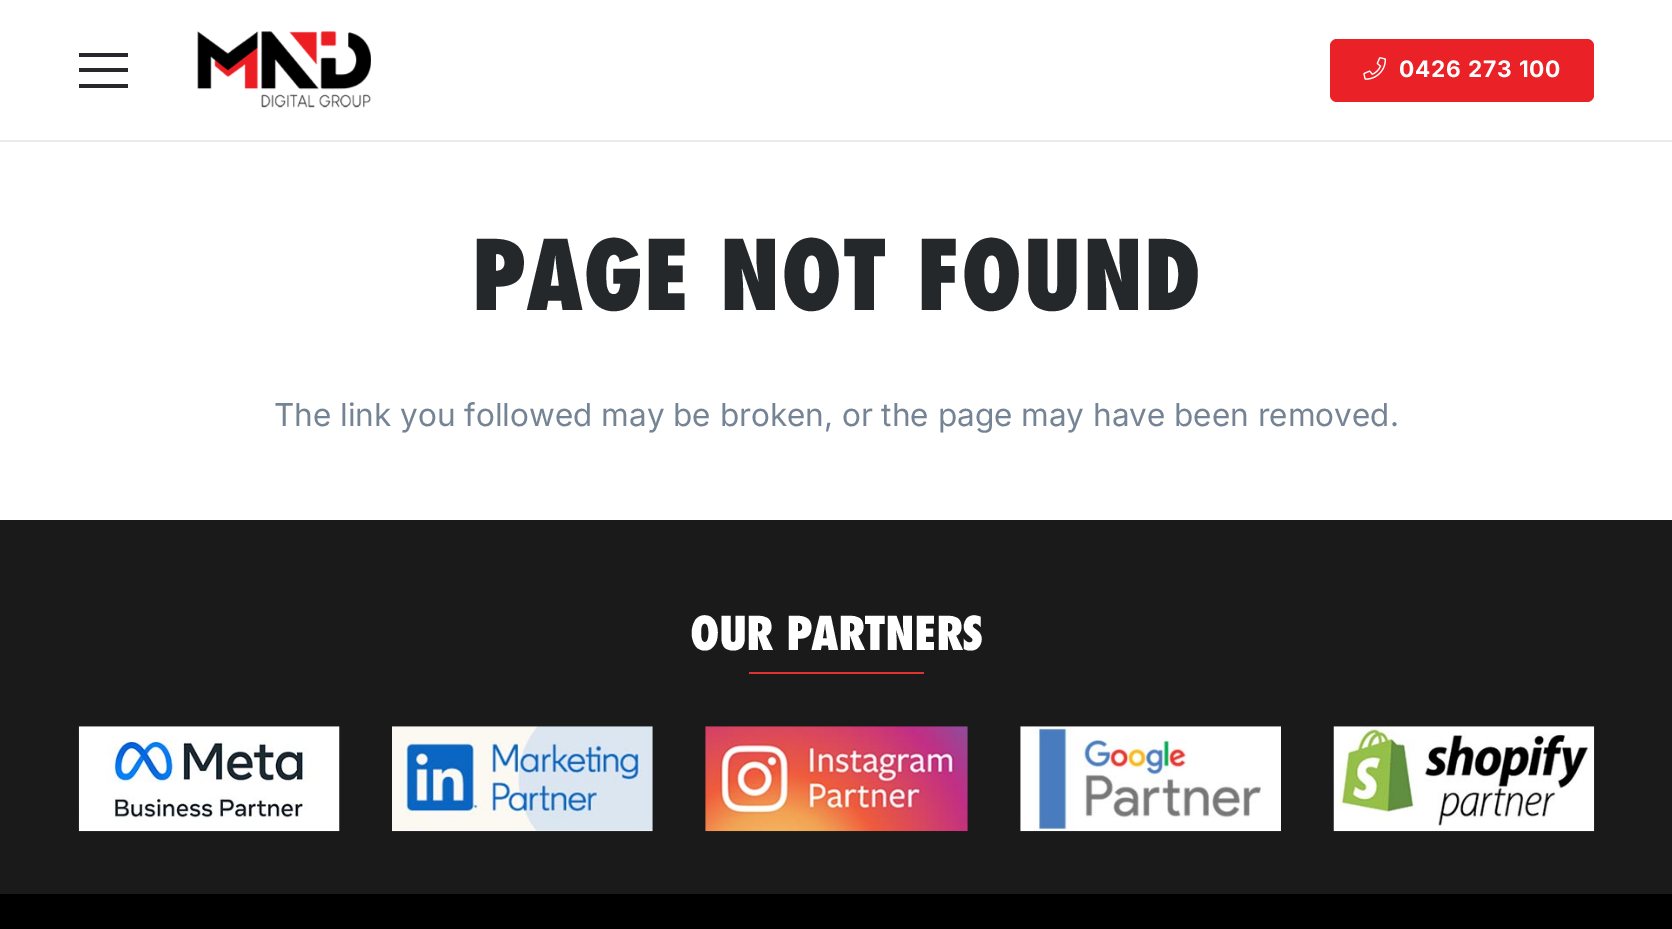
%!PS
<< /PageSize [1672 929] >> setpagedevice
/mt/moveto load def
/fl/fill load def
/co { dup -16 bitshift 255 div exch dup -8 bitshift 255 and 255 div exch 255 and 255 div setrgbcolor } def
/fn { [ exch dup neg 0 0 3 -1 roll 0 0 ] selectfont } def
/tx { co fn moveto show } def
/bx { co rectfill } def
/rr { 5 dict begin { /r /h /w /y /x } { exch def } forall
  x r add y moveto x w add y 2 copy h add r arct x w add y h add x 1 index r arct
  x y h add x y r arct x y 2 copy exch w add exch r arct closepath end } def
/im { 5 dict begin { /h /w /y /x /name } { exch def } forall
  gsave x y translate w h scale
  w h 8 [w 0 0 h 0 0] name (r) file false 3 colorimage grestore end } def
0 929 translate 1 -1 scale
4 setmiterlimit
0 0 1672 929 16#FFFFFF bx
0 140 1672 2 16#EBEBEB bx
79 68 49 4 16#26282C bx
79 53 49 4 16#26282C bx
79 84 49 4 16#26282C bx
(media/1.raw) 197 31 174 77 im
16#EA2227 co
1330 39 264 63 7 rr fl
(media/2.raw) 1363 57 23 23 im
0 520 1672 374 16#1A1A1A bx
749 672 175 2 16#DD3333 bx
(media/3.raw) 78 726 262 106 im
(media/4.raw) 392 726 261 106 im
(media/5.raw) 705 726 263 106 im
(media/6.raw) 1020 726 261 106 im
(media/7.raw) 1333 726 262 106 im
0 894 1672 35 16#000000 bx
/Inter-Bold 22.75 fn
16#FFFFFF co
1399 77 mt .75 0 (0426 273 100) ashow
(PAGE NOT FOUND) 471 310 /Futura-ExtraBold 94.5 16#25282B tx
(The link you followed may be broken, or the page may have been removed.) 274 426 /Inter-Regular 31.5 16#748494 tx
/Futura-ExtraBold 45.5 fn
16#FFFFFF co
690 650 mt -.9 0 (OUR PARTNERS) ashow
showpage
